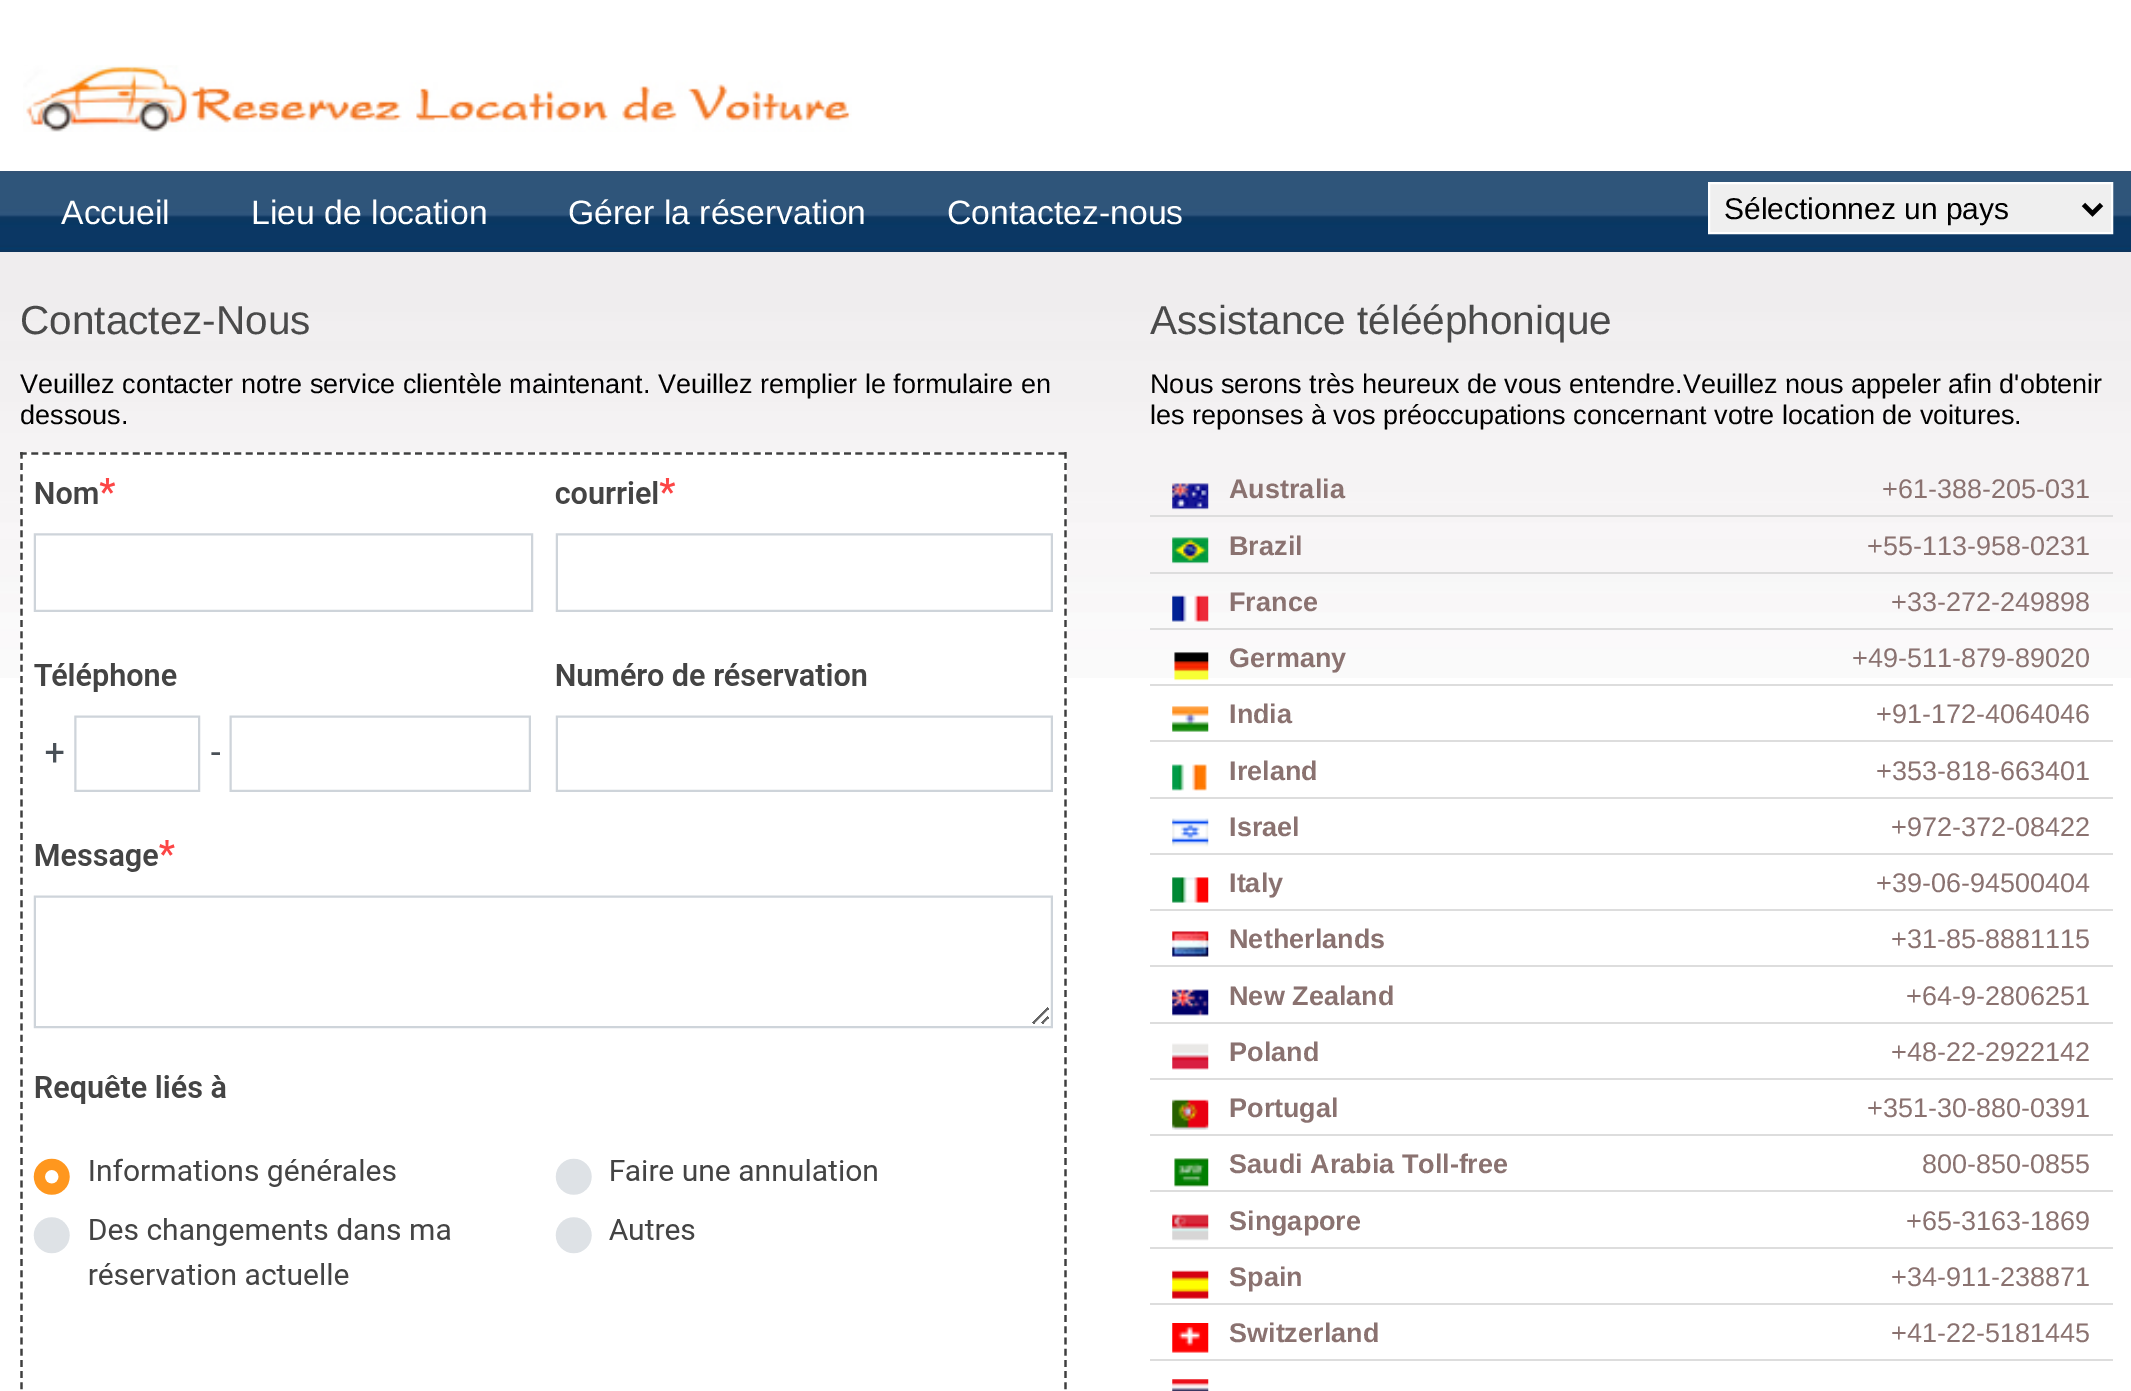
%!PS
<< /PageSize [2131 1391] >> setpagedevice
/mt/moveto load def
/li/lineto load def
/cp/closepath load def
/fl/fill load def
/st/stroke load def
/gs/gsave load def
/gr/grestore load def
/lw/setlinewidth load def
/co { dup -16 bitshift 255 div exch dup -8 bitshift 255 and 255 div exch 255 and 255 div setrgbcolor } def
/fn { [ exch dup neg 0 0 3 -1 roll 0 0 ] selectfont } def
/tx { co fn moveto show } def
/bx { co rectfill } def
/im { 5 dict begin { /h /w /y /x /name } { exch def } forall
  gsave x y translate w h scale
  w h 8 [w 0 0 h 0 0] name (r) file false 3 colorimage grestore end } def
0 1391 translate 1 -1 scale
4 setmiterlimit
0 0 2131 1391 16#FFFFFF bx
(media/1.raw) 0 252 2131 426 im
(media/2.raw) 23 65 829 67 im
(media/3.raw) 0 171 2131 81 im
16#EFEFEF co
1709 183 mt 2112 183 li 2112 233 li 1709 233 li cp gs fl gr
16#FFFFFF co
2 lw
st
16#000000 co
4.5 lw
2083.5 204.5 mt 2092.5 213.5 li 2101.5 204.5 li st
20 452 1047 226 16#FFFFFF bx
16#3E3E3E co
2.2 lw
[6.75 4.54] 0 setdash
20 453.5 mt 1066.5 453.5 li st
[6.75 4.46] 0 setdash
1065.5 452 mt 1065.5 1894.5 li st
21.5 452 mt 21.5 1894.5 li st
(media/4.raw) 33 478 1020 807 im
1150 515 963 2 16#DDDDDD bx
(media/5.raw) 1172 483 37 27 im
1150 572 963 2 16#DDDDDD bx
(media/6.raw) 1172 537 37 27 im
1150 628 963 2 16#DDDDDD bx
(media/7.raw) 1172 595 37 27 im
1150 684 963 2 16#DDDDDD bx
(media/8.raw) 1174 652 35 29 im
1150 740 963 2 16#DDDDDD bx
(media/9.raw) 1172 706 37 26 im
1150 797 963 2 16#DDDDDD bx
(media/10.raw) 1172 764 35 27 im
1150 853 963 2 16#DDDDDD bx
(media/11.raw) 1172 818 37 29 im
1150 909 963 2 16#DDDDDD bx
(media/12.raw) 1172 877 37 26 im
1150 965 963 2 16#DDDDDD bx
(media/13.raw) 1172 931 37 26 im
1150 1022 963 2 16#DDDDDD bx
(media/14.raw) 1172 989 37 27 im
1150 1078 963 2 16#DDDDDD bx
(media/15.raw) 1172 1043 37 27 im
1150 1134 963 2 16#DDDDDD bx
(media/16.raw) 1172 1099 37 31 im
1150 1190 963 2 16#DDDDDD bx
(media/17.raw) 1174 1158 35 29 im
1150 1247 963 2 16#DDDDDD bx
(media/18.raw) 1172 1214 37 27 im
1150 1303 963 2 16#DDDDDD bx
(media/19.raw) 1172 1270 37 29 im
1150 1359 963 2 16#DDDDDD bx
(media/20.raw) 1172 1323 37 30 im
(media/21.raw) 1172 1379 37 12 im
(Accueil) 61 224 /LiberationSans-Regular 33.75 16#FFFFFF tx
(Lieu de location) 251 224 /LiberationSans-Regular 33.75 16#FFFFFF tx
(Gérer la réservation) 568 224 /LiberationSans-Regular 33.75 16#FFFFFF tx
(Contactez-nous) 947 224 /LiberationSans-Regular 33.75 16#FFFFFF tx
(Sélectionnez un pays) 1724 219 /LiberationSans-Regular 30 16#000000 tx
(Contactez-Nous) 20 334 /LiberationSans-Regular 40.5 16#4A4A4A tx
(Veuillez contacter notre service clientèle maintenant. Veuillez remplier le formulaire en) 20 393 /LiberationSans-Regular 27 16#000000 tx
(dessous.) 20 424 /LiberationSans-Regular 27 16#000000 tx
(Assistance télééphonique) 1150 334 /LiberationSans-Regular 40.5 16#4A4A4A tx
(Nous serons très heureux de vous entendre.Veuillez nous appeler afin d'obtenir) 1150 393 /LiberationSans-Regular 27 16#000000 tx
(les reponses à vos préoccupations concernant votre location de voitures.) 1150 424 /LiberationSans-Regular 27 16#000000 tx
(Australia) 1229 498 /LiberationSans-Bold 27 16#8A7270 tx
(+61-388-205-031) 1882 498 /LiberationSans-Regular 27 16#8A7270 tx
(Brazil) 1229 555 /LiberationSans-Bold 27 16#8A7270 tx
(+55-113-958-0231) 1867 555 /LiberationSans-Regular 27 16#8A7270 tx
(France) 1229 611 /LiberationSans-Bold 27 16#8A7270 tx
(+33-272-249898) 1891 611 /LiberationSans-Regular 27 16#8A7270 tx
(Germany) 1229 667 /LiberationSans-Bold 27 16#8A7270 tx
(+49-511-879-89020) 1852 667 /LiberationSans-Regular 27 16#8A7270 tx
(India) 1229 723 /LiberationSans-Bold 27 16#8A7270 tx
(+91-172-4064046) 1876 723 /LiberationSans-Regular 27 16#8A7270 tx
(Ireland) 1229 780 /LiberationSans-Bold 27 16#8A7270 tx
(+353-818-663401) 1876 780 /LiberationSans-Regular 27 16#8A7270 tx
(Israel) 1229 836 /LiberationSans-Bold 27 16#8A7270 tx
(+972-372-08422) 1891 836 /LiberationSans-Regular 27 16#8A7270 tx
(Italy) 1229 892 /LiberationSans-Bold 27 16#8A7270 tx
(+39-06-94500404) 1876 892 /LiberationSans-Regular 27 16#8A7270 tx
(Netherlands) 1229 948 /LiberationSans-Bold 27 16#8A7270 tx
(+31-85-8881115) 1891 948 /LiberationSans-Regular 27 16#8A7270 tx
(New Zealand) 1229 1005 /LiberationSans-Bold 27 16#8A7270 tx
(+64-9-2806251) 1906 1005 /LiberationSans-Regular 27 16#8A7270 tx
(Poland) 1229 1061 /LiberationSans-Bold 27 16#8A7270 tx
(+48-22-2922142) 1891 1061 /LiberationSans-Regular 27 16#8A7270 tx
(Portugal) 1229 1117 /LiberationSans-Bold 27 16#8A7270 tx
(+351-30-880-0391) 1867 1117 /LiberationSans-Regular 27 16#8A7270 tx
(Saudi Arabia Toll-free) 1229 1173 /LiberationSans-Bold 27 16#8A7270 tx
(800-850-0855) 1922 1173 /LiberationSans-Regular 27 16#8A7270 tx
(Singapore) 1229 1230 /LiberationSans-Bold 27 16#8A7270 tx
(+65-3163-1869) 1906 1230 /LiberationSans-Regular 27 16#8A7270 tx
(Spain) 1229 1286 /LiberationSans-Bold 27 16#8A7270 tx
(+34-911-238871) 1891 1286 /LiberationSans-Regular 27 16#8A7270 tx
(Switzerland) 1229 1342 /LiberationSans-Bold 27 16#8A7270 tx
(+41-22-5181445) 1891 1342 /LiberationSans-Regular 27 16#8A7270 tx
showpage
